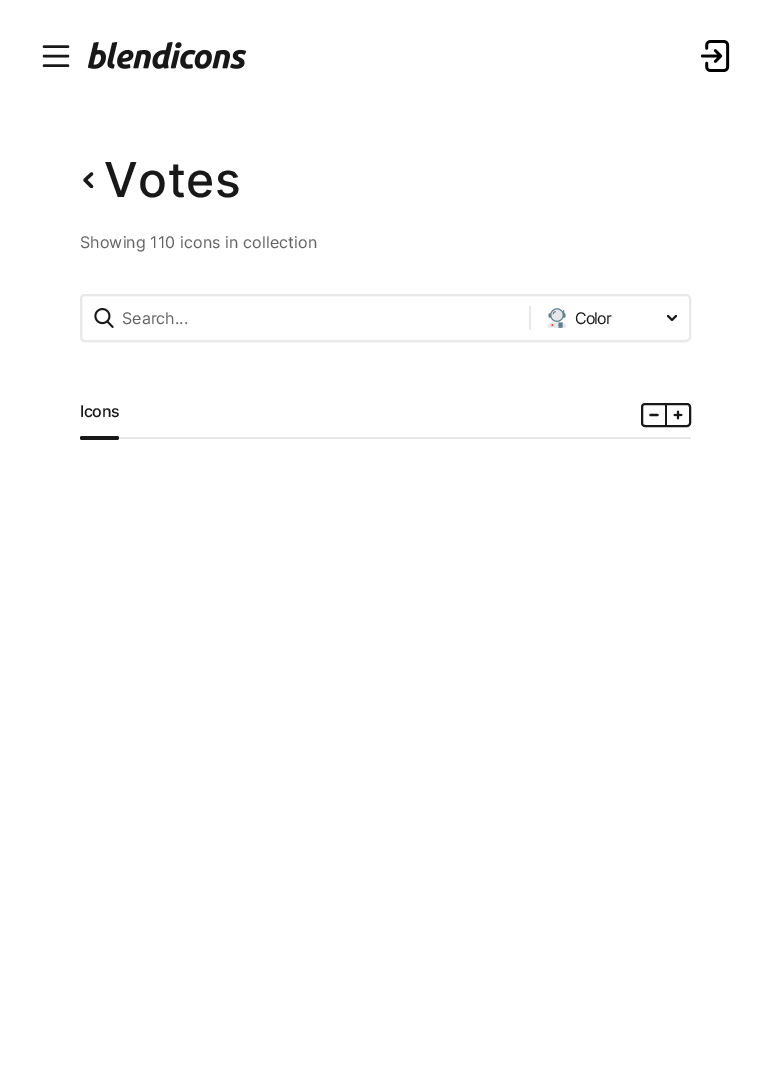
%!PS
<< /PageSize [771 1074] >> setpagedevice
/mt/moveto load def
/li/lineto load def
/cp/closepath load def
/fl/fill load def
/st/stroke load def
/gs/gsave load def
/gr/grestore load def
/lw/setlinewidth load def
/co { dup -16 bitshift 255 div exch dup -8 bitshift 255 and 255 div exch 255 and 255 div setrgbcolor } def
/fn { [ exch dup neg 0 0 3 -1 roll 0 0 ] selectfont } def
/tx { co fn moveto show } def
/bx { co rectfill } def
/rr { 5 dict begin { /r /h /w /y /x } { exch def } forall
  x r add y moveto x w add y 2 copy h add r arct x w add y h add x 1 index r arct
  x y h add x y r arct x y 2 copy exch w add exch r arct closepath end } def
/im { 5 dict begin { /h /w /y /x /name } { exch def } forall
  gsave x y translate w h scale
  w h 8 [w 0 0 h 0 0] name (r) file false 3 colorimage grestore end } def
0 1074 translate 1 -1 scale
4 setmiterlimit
0 0 771 1074 16#FFFFFF bx
16#181818 co
2.4 lw
1 setlinecap
44 46.5 mt 68 46.5 li 44 56 mt 68 56 li 44 65.5 mt 68 65.5 li st
(media/1.raw) 87 42 160 27 im
(media/2.raw) 700 40 30 32 im
gs
96 172 mt 96 188 li 80 188 li 80 172 li cp clip newpath
3.2 lw
1 setlinejoin
91.5 174 mt 85 180 li 91.5 186.5 li st
gr
16#E8E8E8 co
2 lw
0 setlinecap
81 295 609 46 4 rr st
(media/3.raw) 94 308 20 20 im
529 306 2 24 1 rr fl
(media/4.raw) 547 308 20 20 im
16#181818 co
1 setlinecap
1 setlinejoin
668 316 mt 672 320 li 676 316 li st
80 437 611 2 16#E8E8E8 bx
16#181818 co
80 436 39 4 2 rr fl
0 setlinecap
0 setlinejoin
642 404 48 22 3 rr st
665 405 2 20 16#181818 bx
2.3 lw
1 setlinecap
1 setlinejoin
650.5 415 mt 657.5 415 li st
(media/5.raw) 673 410 10 10 im
/Inter-Medium 48 fn
104 197 mt .5 0 (Votes) ashow
/Inter-Regular 16 fn
16#636363 co
80 248 mt .1 0 (Showing 110 icons in collection) ashow
(Search...) 122 324 /Inter-Regular 16 16#636363 tx
16#181818 co
575 324 mt -1 0 (Color) ashow
/Inter-Medium 16 fn
80 417 mt -.5 0 (Icons) ashow
showpage
